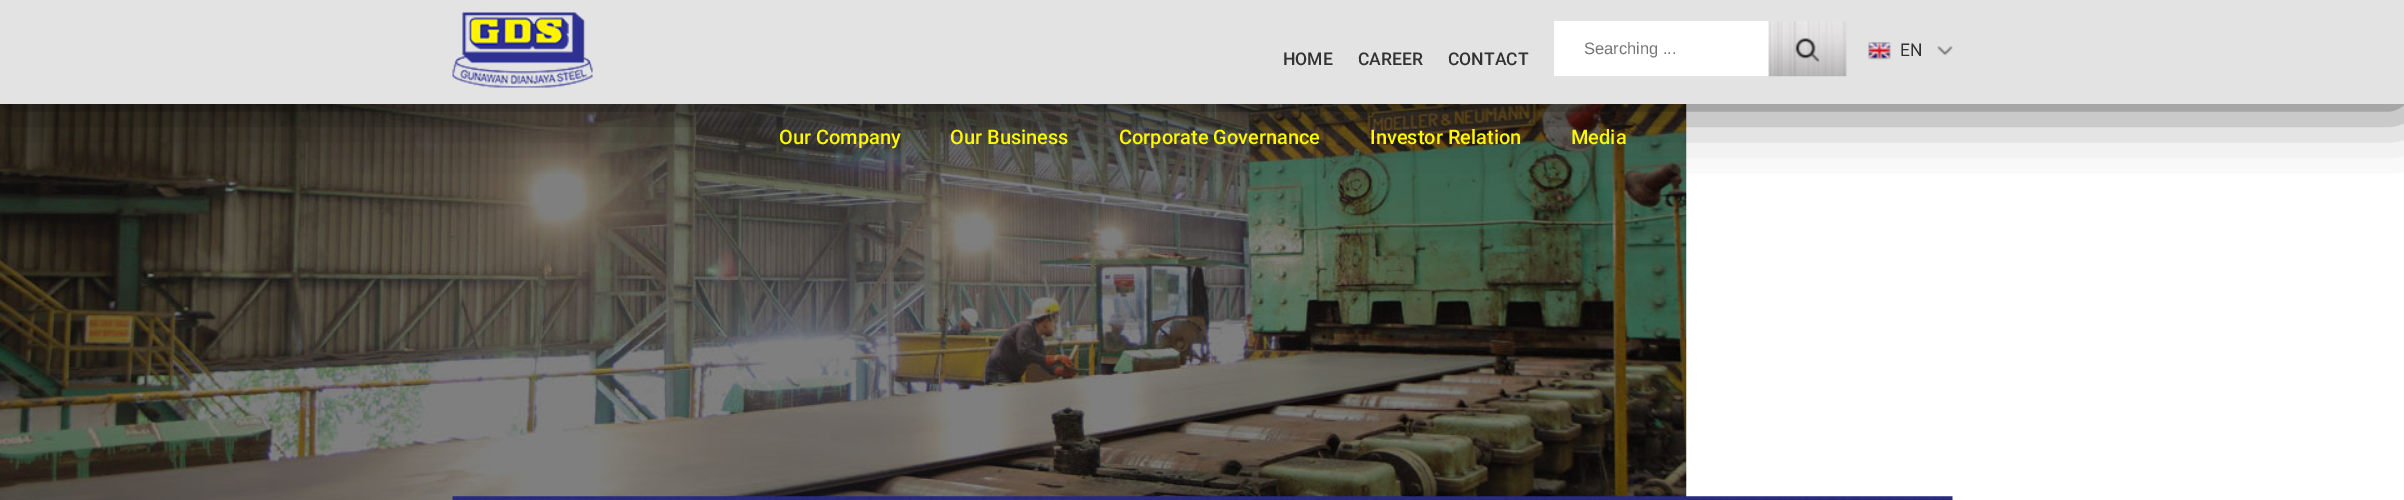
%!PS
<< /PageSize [2404 500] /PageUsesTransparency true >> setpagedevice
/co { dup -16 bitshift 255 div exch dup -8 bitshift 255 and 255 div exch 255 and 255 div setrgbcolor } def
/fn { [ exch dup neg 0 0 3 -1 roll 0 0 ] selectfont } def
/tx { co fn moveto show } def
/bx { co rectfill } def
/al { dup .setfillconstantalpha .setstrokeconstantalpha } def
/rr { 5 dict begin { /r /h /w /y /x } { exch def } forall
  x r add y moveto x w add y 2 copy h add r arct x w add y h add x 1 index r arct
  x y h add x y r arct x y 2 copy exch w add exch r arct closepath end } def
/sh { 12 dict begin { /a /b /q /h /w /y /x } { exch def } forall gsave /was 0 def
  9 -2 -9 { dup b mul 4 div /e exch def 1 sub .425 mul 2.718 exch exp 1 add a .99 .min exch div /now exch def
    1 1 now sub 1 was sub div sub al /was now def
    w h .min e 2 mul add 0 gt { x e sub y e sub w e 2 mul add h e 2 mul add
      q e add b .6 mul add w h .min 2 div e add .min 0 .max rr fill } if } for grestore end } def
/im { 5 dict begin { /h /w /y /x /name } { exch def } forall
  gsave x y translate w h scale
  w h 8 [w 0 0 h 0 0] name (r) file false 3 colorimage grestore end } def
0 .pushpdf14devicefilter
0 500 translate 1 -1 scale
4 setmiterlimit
0 0 2404 500 16#FFFFFF bx
(media/5.raw) 0 104 1687 396 im
16#000000 co
0 0 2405 104 0 31 .7 sh
0 0 2404 104 16#E3E3E3 bx
(media/1.raw) 452 12 141 76 im
1554 21 215 55 16#FFFFFF bx
(media/2.raw) 1768 21 79 56 im
(media/3.raw) 1868 42 23 18 im
(media/4.raw) 1937 46 16 10 im
(media/6.raw) 452 496 1501 4 im
(Searching ...) 1584 54 /LiberationSans-Regular 16.5 16#757575 tx
(EN) 1900 56 /Roboto-Regular 17.5 16#333333 tx
(HOME) 1283 65 /Roboto-Medium 17.5 16#333333 tx
(CAREER) 1358 65 /Roboto-Medium 17.5 16#333333 tx
(CONTACT) 1448 65 /Roboto-Medium 17.5 16#333333 tx
(Our Company) 779 144 /Roboto-Medium 20 16#FFF800 tx
(Our Business) 950 144 /Roboto-Medium 20 16#FFF800 tx
(Corporate Governance) 1119 144 /Roboto-Medium 20 16#FFF800 tx
(Investor Relation) 1370 144 /Roboto-Medium 20 16#FFF800 tx
(Media) 1571 144 /Roboto-Medium 20 16#FFF800 tx
.poppdf14devicefilter showpage
